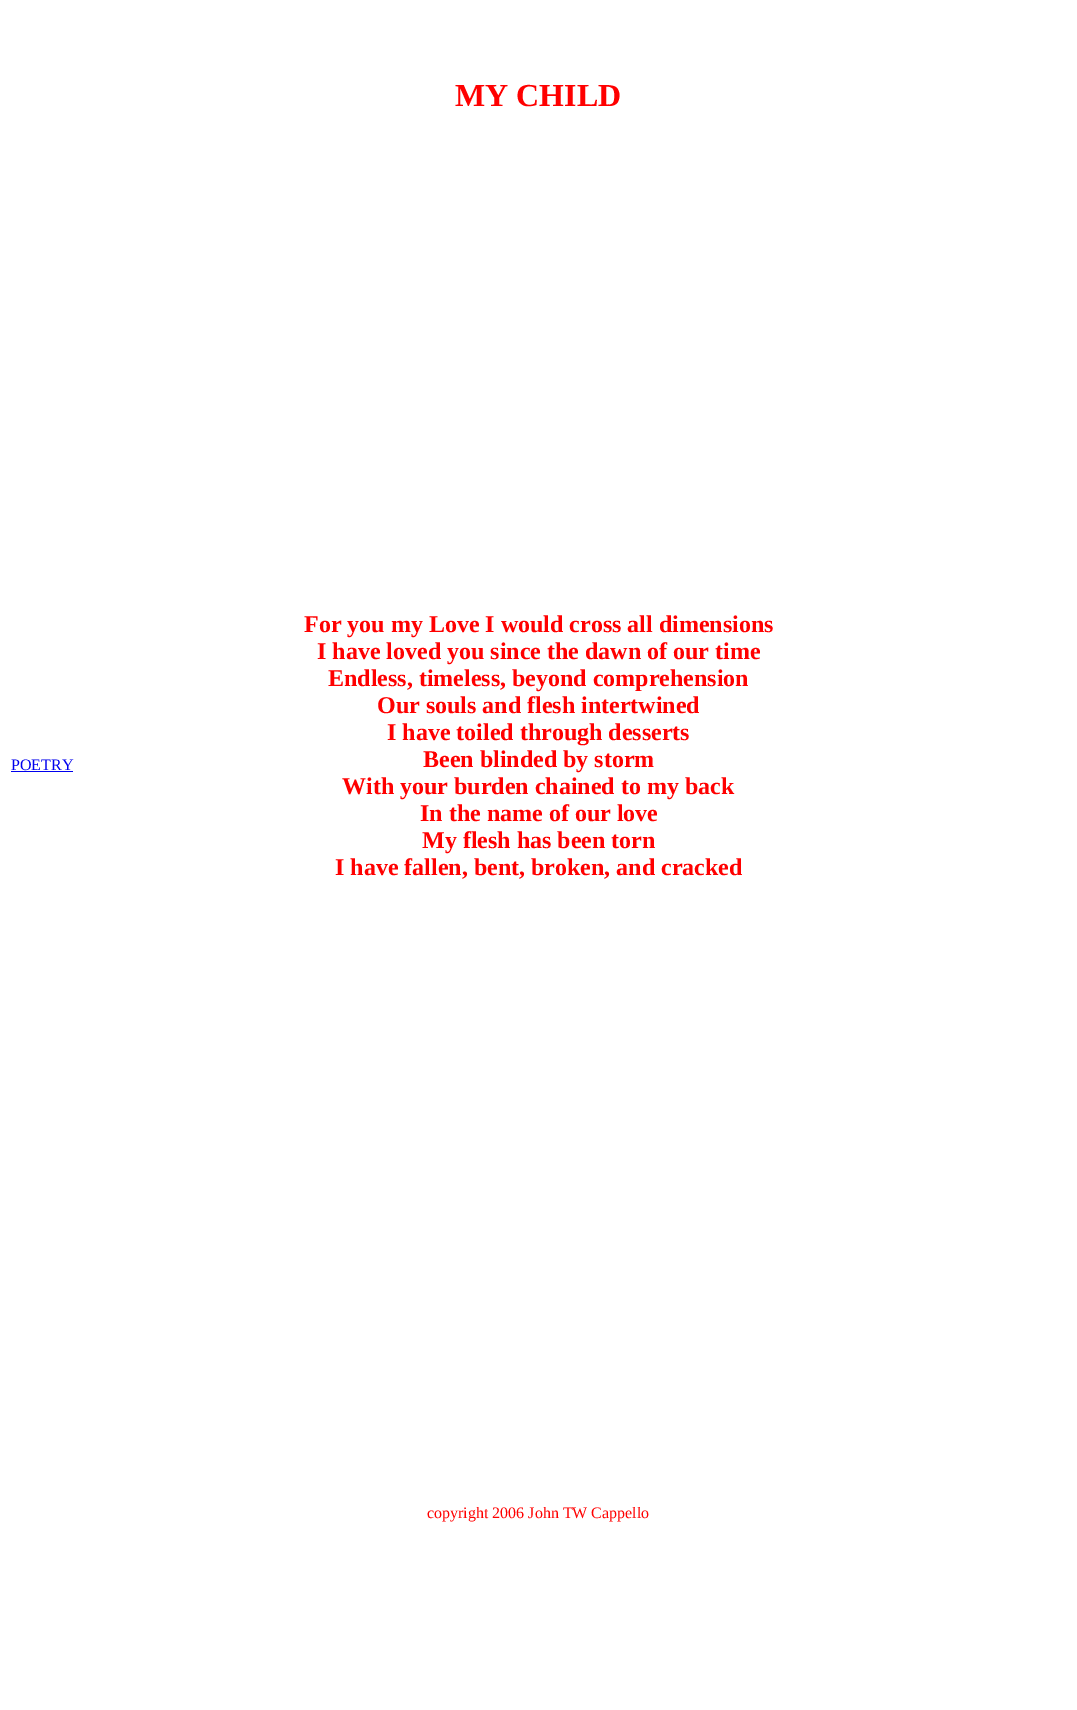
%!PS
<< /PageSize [1077 1710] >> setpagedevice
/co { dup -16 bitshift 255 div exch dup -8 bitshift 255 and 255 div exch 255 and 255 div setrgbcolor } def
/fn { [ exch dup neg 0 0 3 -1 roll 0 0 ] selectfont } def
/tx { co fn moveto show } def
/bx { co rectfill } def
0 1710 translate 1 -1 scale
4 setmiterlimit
0 0 1077 1710 16#FFFFFF bx
11 771 62 1 16#0000EE bx
(MY CHILD) 455 106 /LiberationSerif-Bold 32 16#FF0000 tx
(POETRY) 11 770 /LiberationSerif-Regular 16 16#0000EE tx
(For you my Love I would cross all dimensions) 304 632 /LiberationSerif-Bold 24 16#FF0000 tx
(I have loved you since the dawn of our time) 317 659 /LiberationSerif-Bold 24 16#FF0000 tx
(Endless, timeless, beyond comprehension) 328 686 /LiberationSerif-Bold 24 16#FF0000 tx
(Our souls and flesh intertwined) 377 713 /LiberationSerif-Bold 24 16#FF0000 tx
(I have toiled through desserts) 387 740 /LiberationSerif-Bold 24 16#FF0000 tx
(Been blinded by storm) 423 767 /LiberationSerif-Bold 24 16#FF0000 tx
(With your burden chained to my back) 342 794 /LiberationSerif-Bold 24 16#FF0000 tx
(In the name of our love) 420 821 /LiberationSerif-Bold 24 16#FF0000 tx
(My flesh has been torn) 422 848 /LiberationSerif-Bold 24 16#FF0000 tx
(I have fallen, bent, broken, and cracked) 335 875 /LiberationSerif-Bold 24 16#FF0000 tx
(copyright 2006 John TW Cappello) 427 1518 /LiberationSerif-Regular 16 16#FF0000 tx
showpage
